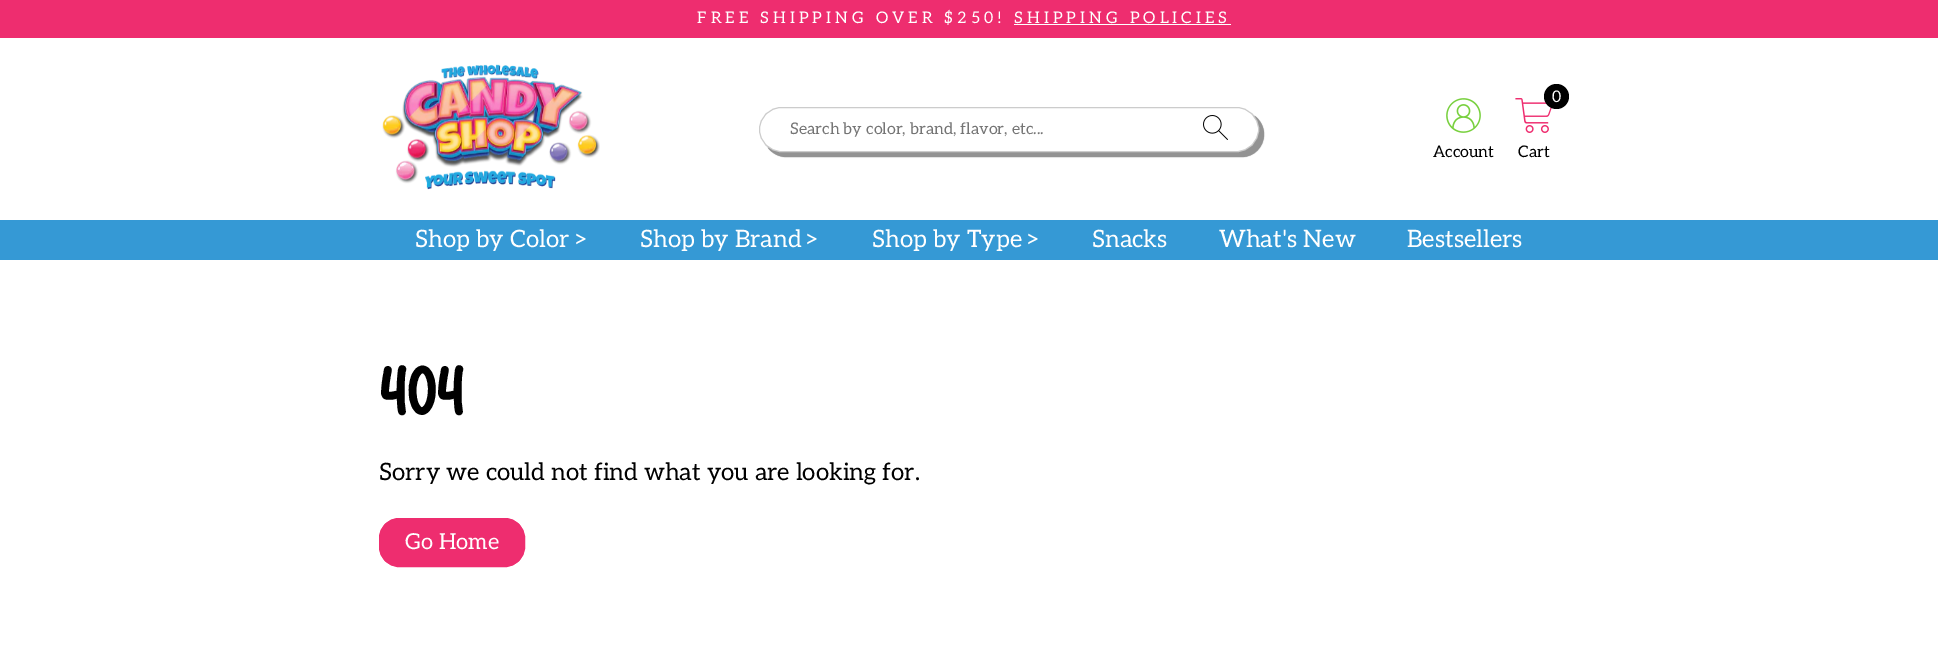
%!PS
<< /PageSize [1938 647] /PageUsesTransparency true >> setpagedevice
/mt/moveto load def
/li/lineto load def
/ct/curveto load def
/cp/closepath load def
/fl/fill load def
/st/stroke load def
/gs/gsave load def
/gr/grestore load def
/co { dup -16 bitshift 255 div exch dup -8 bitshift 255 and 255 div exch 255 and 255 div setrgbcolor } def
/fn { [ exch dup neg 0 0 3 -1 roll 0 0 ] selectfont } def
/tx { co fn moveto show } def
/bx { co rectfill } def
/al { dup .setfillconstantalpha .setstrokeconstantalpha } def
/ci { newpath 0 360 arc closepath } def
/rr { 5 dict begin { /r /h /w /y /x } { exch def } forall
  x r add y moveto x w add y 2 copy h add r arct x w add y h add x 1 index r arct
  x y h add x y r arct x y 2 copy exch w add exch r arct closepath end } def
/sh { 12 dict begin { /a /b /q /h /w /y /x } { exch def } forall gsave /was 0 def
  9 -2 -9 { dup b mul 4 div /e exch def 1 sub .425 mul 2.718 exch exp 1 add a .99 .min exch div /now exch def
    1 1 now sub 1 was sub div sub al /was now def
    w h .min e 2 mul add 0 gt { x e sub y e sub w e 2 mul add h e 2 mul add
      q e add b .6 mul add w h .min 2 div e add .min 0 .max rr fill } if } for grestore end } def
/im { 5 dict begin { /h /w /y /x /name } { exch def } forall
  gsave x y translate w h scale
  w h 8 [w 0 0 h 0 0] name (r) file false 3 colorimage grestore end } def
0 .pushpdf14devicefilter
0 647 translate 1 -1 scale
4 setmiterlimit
0 0 1938 647 16#FFFFFF bx
0 0 1938 38 16#EE2D6F bx
1014 24 217 1 16#FFFFFF bx
(media/1.raw) 382 64 218 126 im
gs
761 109 mt 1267 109 li 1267 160 li 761 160 li cp 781.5 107 mt 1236.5 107 li 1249 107 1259 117 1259 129.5 ct 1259 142 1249 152 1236.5 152 ct 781.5 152 li 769 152 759 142 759 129.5 ct 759 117 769 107 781.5 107 ct cp eoclip newpath
16#939393 co
764 112 500 45 22.5 .5 1 sh
gr
16#939393 co
768 148 mt 772 153 779 157 786 157 ct 1242 157 li 1254 157 1264 147 1264 134 ct 1264 127 1260 120 1255 116 ct 1257 120 1259 125 1259 130 ct 1259 142 1249 152 1236 152 ct 782 152 li 777 152 772 150 768 148 ct cp fl
16#CCCCCC co
759.5 107.5 499 44 22 rr st
(media/2.raw) 1203 115 25 25 im
(media/3.raw) 1446 98 35 35 im
(media/4.raw) 1515 98 37 35 im
16#000000 co
1556.5 96.5 12.5 ci fl
0 220 1938 40 16#3599D5 bx
16#EE2D6F co
379.5 518.5 145 48 19.5 rr gs fl gr
st
/Aleo-Regular 16 fn
16#FFFFFF co
697 23 mt 4 0 (FREE SHIPPING OVER $250! SHIPPING POLICIES) ashow
(Search by color, brand, flavor, etc...) 790 134 /Aleo-Regular 16 16#757575 tx
(Account) 1433 157 /Aleo-Regular 16 16#000000 tx
(0) 1552 102 /Aleo-Regular 16 16#FFFFFF tx
(Cart) 1518 157 /Aleo-Regular 16 16#000000 tx
(Shop by Color) 415 247 /Aleo-Regular 24 16#FFFFFF tx
(>) 575 247 /Aleo-Regular 24 16#FFFFFF tx
(Shop by Brand) 640 247 /Aleo-Regular 24 16#FFFFFF tx
(>) 806 247 /Aleo-Regular 24 16#FFFFFF tx
(Shop by Type) 872 247 /Aleo-Regular 24 16#FFFFFF tx
(>) 1027 247 /Aleo-Regular 24 16#FFFFFF tx
(Snacks) 1092 247 /Aleo-Regular 24 16#FFFFFF tx
(What's New) 1219 247 /Aleo-Regular 24 16#FFFFFF tx
(Bestsellers) 1407 247 /Aleo-Regular 24 16#FFFFFF tx
(404) 379 415 /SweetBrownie-Bold 48 16#000000 tx
(Sorry we could not find what you are looking for.) 379 480 /Aleo-Regular 24 16#000000 tx
(Go Home) 405 549 /Aleo-Regular 22 16#FFFFFF tx
.poppdf14devicefilter showpage
